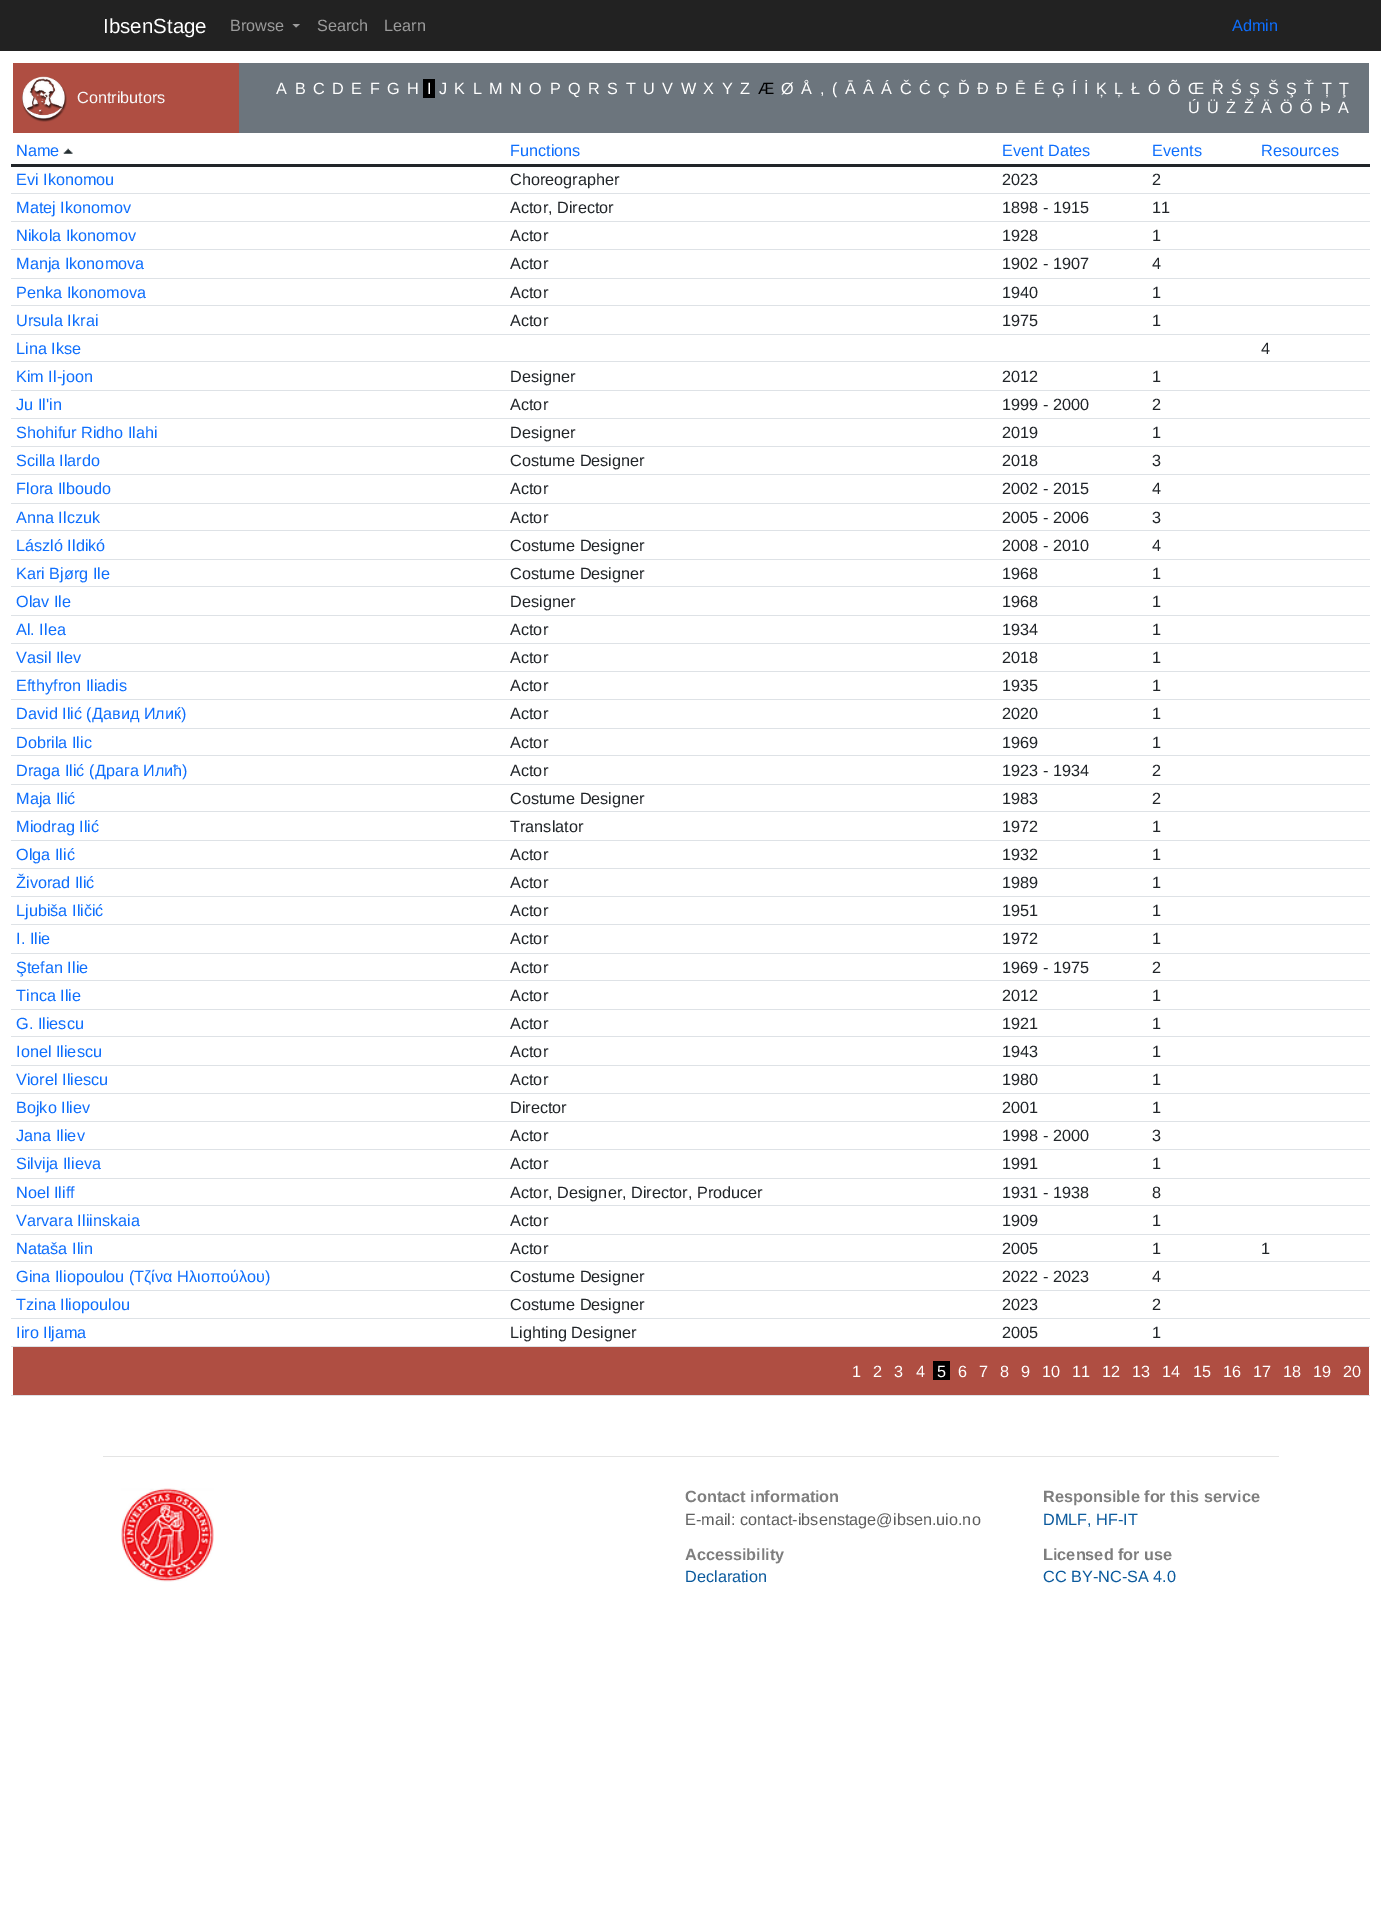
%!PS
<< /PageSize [1381 1911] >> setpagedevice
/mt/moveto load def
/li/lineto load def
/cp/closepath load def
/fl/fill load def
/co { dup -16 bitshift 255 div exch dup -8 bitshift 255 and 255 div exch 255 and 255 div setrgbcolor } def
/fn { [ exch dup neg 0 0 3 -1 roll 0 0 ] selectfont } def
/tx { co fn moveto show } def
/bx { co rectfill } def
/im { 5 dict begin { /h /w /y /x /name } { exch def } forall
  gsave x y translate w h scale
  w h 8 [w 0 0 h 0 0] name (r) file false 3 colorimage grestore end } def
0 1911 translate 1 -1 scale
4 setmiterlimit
0 0 1381 1911 16#FFFFFF bx
0 0 1381 51 16#222222 bx
16#9C9C9C co
292.5 24 mt 300 24 li 296 27.5 li cp fl
13 63 226 70 16#AF4E42 bx
(media/1.raw) 22 76 45 46 im
239 63 1130 70 16#6C757D bx
423 79 12 19 16#000000 bx
(media/2.raw) 63 148 10 6 im
11 164 1359 3 16#212529 bx
11 193 1359 1 16#DEE2E6 bx
11 221 1359 1 16#DEE2E6 bx
11 249 1359 1 16#DEE2E6 bx
11 278 1359 1 16#DEE2E6 bx
11 305 1359 1 16#DEE2E6 bx
11 334 1359 1 16#DEE2E6 bx
11 361 1359 1 16#DEE2E6 bx
11 390 1359 1 16#DEE2E6 bx
11 418 1359 1 16#DEE2E6 bx
11 446 1359 1 16#DEE2E6 bx
11 474 1359 1 16#DEE2E6 bx
11 503 1359 1 16#DEE2E6 bx
11 530 1359 1 16#DEE2E6 bx
11 559 1359 1 16#DEE2E6 bx
11 586 1359 1 16#DEE2E6 bx
11 615 1359 1 16#DEE2E6 bx
11 643 1359 1 16#DEE2E6 bx
11 671 1359 1 16#DEE2E6 bx
11 699 1359 1 16#DEE2E6 bx
11 728 1359 1 16#DEE2E6 bx
11 755 1359 1 16#DEE2E6 bx
11 784 1359 1 16#DEE2E6 bx
11 811 1359 1 16#DEE2E6 bx
11 840 1359 1 16#DEE2E6 bx
11 868 1359 1 16#DEE2E6 bx
11 896 1359 1 16#DEE2E6 bx
11 924 1359 1 16#DEE2E6 bx
11 953 1359 1 16#DEE2E6 bx
11 980 1359 1 16#DEE2E6 bx
11 1009 1359 1 16#DEE2E6 bx
11 1036 1359 1 16#DEE2E6 bx
11 1065 1359 1 16#DEE2E6 bx
11 1093 1359 1 16#DEE2E6 bx
11 1121 1359 1 16#DEE2E6 bx
11 1149 1359 1 16#DEE2E6 bx
11 1178 1359 1 16#DEE2E6 bx
11 1205 1359 1 16#DEE2E6 bx
11 1234 1359 1 16#DEE2E6 bx
11 1261 1359 1 16#DEE2E6 bx
11 1290 1359 1 16#DEE2E6 bx
11 1318 1359 1 16#DEE2E6 bx
11 1346 1359 1 16#DEE2E6 bx
13 1347 1356 48 16#AF4E42 bx
11 1395 1359 1 16#DEE2E6 bx
933 1361 17 19 16#000000 bx
103 1456 1176 1 16#E4E4E4 bx
(media/3.raw) 121 1488 93 94 im
(IbsenStage) 103 33 /LiberationSans-Regular 20.5 16#FFFFFF tx
(Browse) 230 31 /LiberationSans-Regular 16.25 16#9C9C9C tx
(Search) 317 31 /LiberationSans-Regular 16.25 16#9C9C9C tx
(Learn) 384 31 /LiberationSans-Regular 16.25 16#9C9C9C tx
(Admin) 1232 31 /LiberationSans-Regular 16.25 16#0D6EFD tx
(Contributors) 77 103 /LiberationSans-Regular 16.25 16#F8F9FA tx
(A) 276 94 /LiberationSans-Regular 16.25 16#FFFFFF tx
(B) 295 94 /LiberationSans-Regular 16.25 16#FFFFFF tx
(C) 313 94 /LiberationSans-Regular 16.25 16#FFFFFF tx
(D) 332 94 /LiberationSans-Regular 16.25 16#FFFFFF tx
(E) 351 94 /LiberationSans-Regular 16.25 16#FFFFFF tx
(F) 370 94 /LiberationSans-Regular 16.25 16#FFFFFF tx
(G) 387 94 /LiberationSans-Regular 16.25 16#FFFFFF tx
(H) 407 94 /LiberationSans-Regular 16.25 16#FFFFFF tx
(I) 427 94 /LiberationSans-Regular 16.25 16#FFFFFF tx
(J) 439 94 /LiberationSans-Regular 16.25 16#FFFFFF tx
(K) 454 94 /LiberationSans-Regular 16.25 16#FFFFFF tx
(L) 473 94 /LiberationSans-Regular 16.25 16#FFFFFF tx
(M) 489 94 /LiberationSans-Regular 16.25 16#FFFFFF tx
(N) 510 94 /LiberationSans-Regular 16.25 16#FFFFFF tx
(O) 529 94 /LiberationSans-Regular 16.25 16#FFFFFF tx
(P) 550 94 /LiberationSans-Regular 16.25 16#FFFFFF tx
(Q) 568 94 /LiberationSans-Regular 16.25 16#FFFFFF tx
(R) 588 94 /LiberationSans-Regular 16.25 16#FFFFFF tx
(S) 607 94 /LiberationSans-Regular 16.25 16#FFFFFF tx
(T) 626 94 /LiberationSans-Regular 16.25 16#FFFFFF tx
(U) 643 94 /LiberationSans-Regular 16.25 16#FFFFFF tx
(V) 662 94 /LiberationSans-Regular 16.25 16#FFFFFF tx
(W) 681 94 /LiberationSans-Regular 16.25 16#FFFFFF tx
(X) 703 94 /LiberationSans-Regular 16.25 16#FFFFFF tx
(Y) 722 94 /LiberationSans-Regular 16.25 16#FFFFFF tx
(Z) 740 94 /LiberationSans-Regular 16.25 16#FFFFFF tx
(Æ) 758 94 /LiberationSans-Regular 16.25 16#000000 tx
(Ø) 781 94 /LiberationSans-Regular 16.25 16#FFFFFF tx
(Å) 801 94 /LiberationSans-Regular 16.25 16#FFFFFF tx
(,) 820 94 /LiberationSans-Regular 16.25 16#FFFFFF tx
(\() 832 94 /LiberationSans-Regular 16.25 16#FFFFFF tx
(Ā) 845 94 /LiberationSans-Regular 16.25 16#FFFFFF tx
(Â) 863 94 /LiberationSans-Regular 16.25 16#FFFFFF tx
(Á) 881 94 /LiberationSans-Regular 16.25 16#FFFFFF tx
(Č) 900 94 /LiberationSans-Regular 16.25 16#FFFFFF tx
(Ć) 919 94 /LiberationSans-Regular 16.25 16#FFFFFF tx
(Ç) 938 94 /LiberationSans-Regular 16.25 16#FFFFFF tx
(Ď) 958 94 /LiberationSans-Regular 16.25 16#FFFFFF tx
(Đ) 977 94 /LiberationSans-Regular 16.25 16#FFFFFF tx
(Ð) 996 94 /LiberationSans-Regular 16.25 16#FFFFFF tx
(Ē) 1015 94 /LiberationSans-Regular 16.25 16#FFFFFF tx
(É) 1034 94 /LiberationSans-Regular 16.25 16#FFFFFF tx
(Ģ) 1052 94 /LiberationSans-Regular 16.25 16#FFFFFF tx
(Í) 1072 94 /LiberationSans-Regular 16.25 16#FFFFFF tx
(İ) 1084 94 /LiberationSans-Regular 16.25 16#FFFFFF tx
(Ķ) 1096 94 /LiberationSans-Regular 16.25 16#FFFFFF tx
(Ļ) 1114 94 /LiberationSans-Regular 16.25 16#FFFFFF tx
(Ł) 1131 94 /LiberationSans-Regular 16.25 16#FFFFFF tx
(Ó) 1148 94 /LiberationSans-Regular 16.25 16#FFFFFF tx
(Õ) 1168 94 /LiberationSans-Regular 16.25 16#FFFFFF tx
(Œ) 1188 94 /LiberationSans-Regular 16.25 16#FFFFFF tx
(Ř) 1212 94 /LiberationSans-Regular 16.25 16#FFFFFF tx
(Ś) 1231 94 /LiberationSans-Regular 16.25 16#FFFFFF tx
(Ș) 1249 94 /LiberationSans-Regular 16.25 16#FFFFFF tx
(Š) 1268 94 /LiberationSans-Regular 16.25 16#FFFFFF tx
(Ş) 1286 94 /LiberationSans-Regular 16.25 16#FFFFFF tx
(Ť) 1304 94 /LiberationSans-Regular 16.25 16#FFFFFF tx
(Ț) 1322 94 /LiberationSans-Regular 16.25 16#FFFFFF tx
(Ţ) 1339 94 /LiberationSans-Regular 16.25 16#FFFFFF tx
(Ú) 1188 113 /LiberationSans-Regular 16.25 16#FFFFFF tx
(Ü) 1207 113 /LiberationSans-Regular 16.25 16#FFFFFF tx
(Ż) 1226 113 /LiberationSans-Regular 16.25 16#FFFFFF tx
(Ž) 1244 113 /LiberationSans-Regular 16.25 16#FFFFFF tx
(Ä) 1261 113 /LiberationSans-Regular 16.25 16#FFFFFF tx
(Ö) 1280 113 /LiberationSans-Regular 16.25 16#FFFFFF tx
(Ő) 1300 113 /LiberationSans-Regular 16.25 16#FFFFFF tx
(Þ) 1320 113 /LiberationSans-Regular 16.25 16#FFFFFF tx
(А) 1338 113 /LiberationSans-Regular 16.25 16#FFFFFF tx
(Name) 16 156 /LiberationSans-Regular 16.25 16#0D6EFD tx
(Functions) 510 156 /LiberationSans-Regular 16.25 16#0D6EFD tx
(Event Dates) 1002 156 /LiberationSans-Regular 16.25 16#0D6EFD tx
(Events) 1152 156 /LiberationSans-Regular 16.25 16#0D6EFD tx
(Resources) 1261 156 /LiberationSans-Regular 16.25 16#0D6EFD tx
(Evi Ikonomou) 16 185 /LiberationSans-Regular 16.25 16#0D6EFD tx
(Choreographer) 510 185 /LiberationSans-Regular 16.25 16#212529 tx
(2023) 1002 185 /LiberationSans-Regular 16.25 16#212529 tx
(2) 1152 185 /LiberationSans-Regular 16.25 16#212529 tx
(Matej Ikonomov) 16 213 /LiberationSans-Regular 16.25 16#0D6EFD tx
(Actor, Director) 510 213 /LiberationSans-Regular 16.25 16#212529 tx
(1898 - 1915) 1002 213 /LiberationSans-Regular 16.25 16#212529 tx
(11) 1152 213 /LiberationSans-Regular 16.25 16#212529 tx
(Nikola Ikonomov) 16 241 /LiberationSans-Regular 16.25 16#0D6EFD tx
(Actor) 510 241 /LiberationSans-Regular 16.25 16#212529 tx
(1928) 1002 241 /LiberationSans-Regular 16.25 16#212529 tx
(1) 1152 241 /LiberationSans-Regular 16.25 16#212529 tx
(Manja Ikonomova) 16 269 /LiberationSans-Regular 16.25 16#0D6EFD tx
(Actor) 510 269 /LiberationSans-Regular 16.25 16#212529 tx
(1902 - 1907) 1002 269 /LiberationSans-Regular 16.25 16#212529 tx
(4) 1152 269 /LiberationSans-Regular 16.25 16#212529 tx
(Penka Ikonomova) 16 298 /LiberationSans-Regular 16.25 16#0D6EFD tx
(Actor) 510 298 /LiberationSans-Regular 16.25 16#212529 tx
(1940) 1002 298 /LiberationSans-Regular 16.25 16#212529 tx
(1) 1152 298 /LiberationSans-Regular 16.25 16#212529 tx
(Ursula Ikrai) 16 326 /LiberationSans-Regular 16.25 16#0D6EFD tx
(Actor) 510 326 /LiberationSans-Regular 16.25 16#212529 tx
(1975) 1002 326 /LiberationSans-Regular 16.25 16#212529 tx
(1) 1152 326 /LiberationSans-Regular 16.25 16#212529 tx
(Lina Ikse) 16 354 /LiberationSans-Regular 16.25 16#0D6EFD tx
(4) 1261 354 /LiberationSans-Regular 16.25 16#212529 tx
(Kim Il-joon) 16 382 /LiberationSans-Regular 16.25 16#0D6EFD tx
(Designer) 510 382 /LiberationSans-Regular 16.25 16#212529 tx
(2012) 1002 382 /LiberationSans-Regular 16.25 16#212529 tx
(1) 1152 382 /LiberationSans-Regular 16.25 16#212529 tx
(Ju Il'in) 16 410 /LiberationSans-Regular 16.25 16#0D6EFD tx
(Actor) 510 410 /LiberationSans-Regular 16.25 16#212529 tx
(1999 - 2000) 1002 410 /LiberationSans-Regular 16.25 16#212529 tx
(2) 1152 410 /LiberationSans-Regular 16.25 16#212529 tx
(Shohifur Ridho Ilahi) 16 438 /LiberationSans-Regular 16.25 16#0D6EFD tx
(Designer) 510 438 /LiberationSans-Regular 16.25 16#212529 tx
(2019) 1002 438 /LiberationSans-Regular 16.25 16#212529 tx
(1) 1152 438 /LiberationSans-Regular 16.25 16#212529 tx
(Scilla Ilardo) 16 466 /LiberationSans-Regular 16.25 16#0D6EFD tx
(Costume Designer) 510 466 /LiberationSans-Regular 16.25 16#212529 tx
(2018) 1002 466 /LiberationSans-Regular 16.25 16#212529 tx
(3) 1152 466 /LiberationSans-Regular 16.25 16#212529 tx
(Flora Ilboudo) 16 494 /LiberationSans-Regular 16.25 16#0D6EFD tx
(Actor) 510 494 /LiberationSans-Regular 16.25 16#212529 tx
(2002 - 2015) 1002 494 /LiberationSans-Regular 16.25 16#212529 tx
(4) 1152 494 /LiberationSans-Regular 16.25 16#212529 tx
(Anna Ilczuk) 16 523 /LiberationSans-Regular 16.25 16#0D6EFD tx
(Actor) 510 523 /LiberationSans-Regular 16.25 16#212529 tx
(2005 - 2006) 1002 523 /LiberationSans-Regular 16.25 16#212529 tx
(3) 1152 523 /LiberationSans-Regular 16.25 16#212529 tx
(László Ildikó) 16 551 /LiberationSans-Regular 16.25 16#0D6EFD tx
(Costume Designer) 510 551 /LiberationSans-Regular 16.25 16#212529 tx
(2008 - 2010) 1002 551 /LiberationSans-Regular 16.25 16#212529 tx
(4) 1152 551 /LiberationSans-Regular 16.25 16#212529 tx
(Kari Bjørg Ile) 16 579 /LiberationSans-Regular 16.25 16#0D6EFD tx
(Costume Designer) 510 579 /LiberationSans-Regular 16.25 16#212529 tx
(1968) 1002 579 /LiberationSans-Regular 16.25 16#212529 tx
(1) 1152 579 /LiberationSans-Regular 16.25 16#212529 tx
(Olav Ile) 16 607 /LiberationSans-Regular 16.25 16#0D6EFD tx
(Designer) 510 607 /LiberationSans-Regular 16.25 16#212529 tx
(1968) 1002 607 /LiberationSans-Regular 16.25 16#212529 tx
(1) 1152 607 /LiberationSans-Regular 16.25 16#212529 tx
(Al. Ilea) 16 635 /LiberationSans-Regular 16.25 16#0D6EFD tx
(Actor) 510 635 /LiberationSans-Regular 16.25 16#212529 tx
(1934) 1002 635 /LiberationSans-Regular 16.25 16#212529 tx
(1) 1152 635 /LiberationSans-Regular 16.25 16#212529 tx
(Vasil Ilev) 16 663 /LiberationSans-Regular 16.25 16#0D6EFD tx
(Actor) 510 663 /LiberationSans-Regular 16.25 16#212529 tx
(2018) 1002 663 /LiberationSans-Regular 16.25 16#212529 tx
(1) 1152 663 /LiberationSans-Regular 16.25 16#212529 tx
(Efthyfron Iliadis) 16 691 /LiberationSans-Regular 16.25 16#0D6EFD tx
(Actor) 510 691 /LiberationSans-Regular 16.25 16#212529 tx
(1935) 1002 691 /LiberationSans-Regular 16.25 16#212529 tx
(1) 1152 691 /LiberationSans-Regular 16.25 16#212529 tx
(David Ilić \(Давид Илиќ\)) 16 719 /LiberationSans-Regular 16.25 16#0D6EFD tx
(Actor) 510 719 /LiberationSans-Regular 16.25 16#212529 tx
(2020) 1002 719 /LiberationSans-Regular 16.25 16#212529 tx
(1) 1152 719 /LiberationSans-Regular 16.25 16#212529 tx
(Dobrila Ilic) 16 748 /LiberationSans-Regular 16.25 16#0D6EFD tx
(Actor) 510 748 /LiberationSans-Regular 16.25 16#212529 tx
(1969) 1002 748 /LiberationSans-Regular 16.25 16#212529 tx
(1) 1152 748 /LiberationSans-Regular 16.25 16#212529 tx
(Draga Ilić \(Драга Илић\)) 16 776 /LiberationSans-Regular 16.25 16#0D6EFD tx
(Actor) 510 776 /LiberationSans-Regular 16.25 16#212529 tx
(1923 - 1934) 1002 776 /LiberationSans-Regular 16.25 16#212529 tx
(2) 1152 776 /LiberationSans-Regular 16.25 16#212529 tx
(Maja Ilić) 16 804 /LiberationSans-Regular 16.25 16#0D6EFD tx
(Costume Designer) 510 804 /LiberationSans-Regular 16.25 16#212529 tx
(1983) 1002 804 /LiberationSans-Regular 16.25 16#212529 tx
(2) 1152 804 /LiberationSans-Regular 16.25 16#212529 tx
(Miodrag Ilić) 16 832 /LiberationSans-Regular 16.25 16#0D6EFD tx
(Translator) 510 832 /LiberationSans-Regular 16.25 16#212529 tx
(1972) 1002 832 /LiberationSans-Regular 16.25 16#212529 tx
(1) 1152 832 /LiberationSans-Regular 16.25 16#212529 tx
(Olga Ilić) 16 860 /LiberationSans-Regular 16.25 16#0D6EFD tx
(Actor) 510 860 /LiberationSans-Regular 16.25 16#212529 tx
(1932) 1002 860 /LiberationSans-Regular 16.25 16#212529 tx
(1) 1152 860 /LiberationSans-Regular 16.25 16#212529 tx
(Živorad Ilić) 16 888 /LiberationSans-Regular 16.25 16#0D6EFD tx
(Actor) 510 888 /LiberationSans-Regular 16.25 16#212529 tx
(1989) 1002 888 /LiberationSans-Regular 16.25 16#212529 tx
(1) 1152 888 /LiberationSans-Regular 16.25 16#212529 tx
(Ljubiša Iličić) 16 916 /LiberationSans-Regular 16.25 16#0D6EFD tx
(Actor) 510 916 /LiberationSans-Regular 16.25 16#212529 tx
(1951) 1002 916 /LiberationSans-Regular 16.25 16#212529 tx
(1) 1152 916 /LiberationSans-Regular 16.25 16#212529 tx
(I. Ilie) 16 944 /LiberationSans-Regular 16.25 16#0D6EFD tx
(Actor) 510 944 /LiberationSans-Regular 16.25 16#212529 tx
(1972) 1002 944 /LiberationSans-Regular 16.25 16#212529 tx
(1) 1152 944 /LiberationSans-Regular 16.25 16#212529 tx
(Ştefan Ilie) 16 973 /LiberationSans-Regular 16.25 16#0D6EFD tx
(Actor) 510 973 /LiberationSans-Regular 16.25 16#212529 tx
(1969 - 1975) 1002 973 /LiberationSans-Regular 16.25 16#212529 tx
(2) 1152 973 /LiberationSans-Regular 16.25 16#212529 tx
(Tinca Ilie) 16 1001 /LiberationSans-Regular 16.25 16#0D6EFD tx
(Actor) 510 1001 /LiberationSans-Regular 16.25 16#212529 tx
(2012) 1002 1001 /LiberationSans-Regular 16.25 16#212529 tx
(1) 1152 1001 /LiberationSans-Regular 16.25 16#212529 tx
(G. Iliescu) 16 1029 /LiberationSans-Regular 16.25 16#0D6EFD tx
(Actor) 510 1029 /LiberationSans-Regular 16.25 16#212529 tx
(1921) 1002 1029 /LiberationSans-Regular 16.25 16#212529 tx
(1) 1152 1029 /LiberationSans-Regular 16.25 16#212529 tx
(Ionel Iliescu) 16 1057 /LiberationSans-Regular 16.25 16#0D6EFD tx
(Actor) 510 1057 /LiberationSans-Regular 16.25 16#212529 tx
(1943) 1002 1057 /LiberationSans-Regular 16.25 16#212529 tx
(1) 1152 1057 /LiberationSans-Regular 16.25 16#212529 tx
(Viorel Iliescu) 16 1085 /LiberationSans-Regular 16.25 16#0D6EFD tx
(Actor) 510 1085 /LiberationSans-Regular 16.25 16#212529 tx
(1980) 1002 1085 /LiberationSans-Regular 16.25 16#212529 tx
(1) 1152 1085 /LiberationSans-Regular 16.25 16#212529 tx
(Bojko Iliev) 16 1113 /LiberationSans-Regular 16.25 16#0D6EFD tx
(Director) 510 1113 /LiberationSans-Regular 16.25 16#212529 tx
(2001) 1002 1113 /LiberationSans-Regular 16.25 16#212529 tx
(1) 1152 1113 /LiberationSans-Regular 16.25 16#212529 tx
(Jana Iliev) 16 1141 /LiberationSans-Regular 16.25 16#0D6EFD tx
(Actor) 510 1141 /LiberationSans-Regular 16.25 16#212529 tx
(1998 - 2000) 1002 1141 /LiberationSans-Regular 16.25 16#212529 tx
(3) 1152 1141 /LiberationSans-Regular 16.25 16#212529 tx
(Silvija Ilieva) 16 1169 /LiberationSans-Regular 16.25 16#0D6EFD tx
(Actor) 510 1169 /LiberationSans-Regular 16.25 16#212529 tx
(1991) 1002 1169 /LiberationSans-Regular 16.25 16#212529 tx
(1) 1152 1169 /LiberationSans-Regular 16.25 16#212529 tx
(Noel Iliff) 16 1198 /LiberationSans-Regular 16.25 16#0D6EFD tx
(Actor, Designer, Director, Producer) 510 1198 /LiberationSans-Regular 16.25 16#212529 tx
(1931 - 1938) 1002 1198 /LiberationSans-Regular 16.25 16#212529 tx
(8) 1152 1198 /LiberationSans-Regular 16.25 16#212529 tx
(Varvara Iliinskaia) 16 1226 /LiberationSans-Regular 16.25 16#0D6EFD tx
(Actor) 510 1226 /LiberationSans-Regular 16.25 16#212529 tx
(1909) 1002 1226 /LiberationSans-Regular 16.25 16#212529 tx
(1) 1152 1226 /LiberationSans-Regular 16.25 16#212529 tx
(Nataša Ilin) 16 1254 /LiberationSans-Regular 16.25 16#0D6EFD tx
(Actor) 510 1254 /LiberationSans-Regular 16.25 16#212529 tx
(2005) 1002 1254 /LiberationSans-Regular 16.25 16#212529 tx
(1) 1152 1254 /LiberationSans-Regular 16.25 16#212529 tx
(1) 1261 1254 /LiberationSans-Regular 16.25 16#212529 tx
(Gina Iliopoulou \(Τζίνα Ηλιοπούλου\)) 16 1282 /LiberationSans-Regular 16.25 16#0D6EFD tx
(Costume Designer) 510 1282 /LiberationSans-Regular 16.25 16#212529 tx
(2022 - 2023) 1002 1282 /LiberationSans-Regular 16.25 16#212529 tx
(4) 1152 1282 /LiberationSans-Regular 16.25 16#212529 tx
(Tzina Iliopoulou) 16 1310 /LiberationSans-Regular 16.25 16#0D6EFD tx
(Costume Designer) 510 1310 /LiberationSans-Regular 16.25 16#212529 tx
(2023) 1002 1310 /LiberationSans-Regular 16.25 16#212529 tx
(2) 1152 1310 /LiberationSans-Regular 16.25 16#212529 tx
(Iiro Iljama) 16 1338 /LiberationSans-Regular 16.25 16#0D6EFD tx
(Lighting Designer) 510 1338 /LiberationSans-Regular 16.25 16#212529 tx
(2005) 1002 1338 /LiberationSans-Regular 16.25 16#212529 tx
(1) 1152 1338 /LiberationSans-Regular 16.25 16#212529 tx
(1) 852 1377 /LiberationSans-Regular 16.25 16#FFFFFF tx
(2) 873 1377 /LiberationSans-Regular 16.25 16#FFFFFF tx
(3) 894 1377 /LiberationSans-Regular 16.25 16#FFFFFF tx
(4) 916 1377 /LiberationSans-Regular 16.25 16#FFFFFF tx
(5) 937 1377 /LiberationSans-Regular 16.25 16#FFFFFF tx
(6) 958 1377 /LiberationSans-Regular 16.25 16#FFFFFF tx
(7) 979 1377 /LiberationSans-Regular 16.25 16#FFFFFF tx
(8) 1000 1377 /LiberationSans-Regular 16.25 16#FFFFFF tx
(9) 1021 1377 /LiberationSans-Regular 16.25 16#FFFFFF tx
(10) 1042 1377 /LiberationSans-Regular 16.25 16#FFFFFF tx
(11) 1072 1377 /LiberationSans-Regular 16.25 16#FFFFFF tx
(12) 1102 1377 /LiberationSans-Regular 16.25 16#FFFFFF tx
(13) 1132 1377 /LiberationSans-Regular 16.25 16#FFFFFF tx
(14) 1162 1377 /LiberationSans-Regular 16.25 16#FFFFFF tx
(15) 1193 1377 /LiberationSans-Regular 16.25 16#FFFFFF tx
(16) 1223 1377 /LiberationSans-Regular 16.25 16#FFFFFF tx
(17) 1253 1377 /LiberationSans-Regular 16.25 16#FFFFFF tx
(18) 1283 1377 /LiberationSans-Regular 16.25 16#FFFFFF tx
(19) 1313 1377 /LiberationSans-Regular 16.25 16#FFFFFF tx
(20) 1343 1377 /LiberationSans-Regular 16.25 16#FFFFFF tx
(Contact information) 685 1502 /LiberationSans-Bold 16.25 16#7E7E7E tx
(E-mail: contact-ibsenstage@ibsen.uio.no) 685 1525 /LiberationSans-Regular 16.25 16#5E5E5E tx
(Accessibility) 685 1560 /LiberationSans-Bold 16.25 16#7E7E7E tx
(Declaration) 685 1582 /LiberationSans-Regular 16.25 16#0B5A9D tx
(Responsible for this service) 1043 1502 /LiberationSans-Bold 16.25 16#7E7E7E tx
(DMLF, HF-IT) 1043 1525 /LiberationSans-Regular 16.25 16#0B5A9D tx
(Licensed for use) 1043 1560 /LiberationSans-Bold 16.25 16#7E7E7E tx
(CC BY-NC-SA 4.0) 1043 1582 /LiberationSans-Regular 16.25 16#0B5A9D tx
showpage
